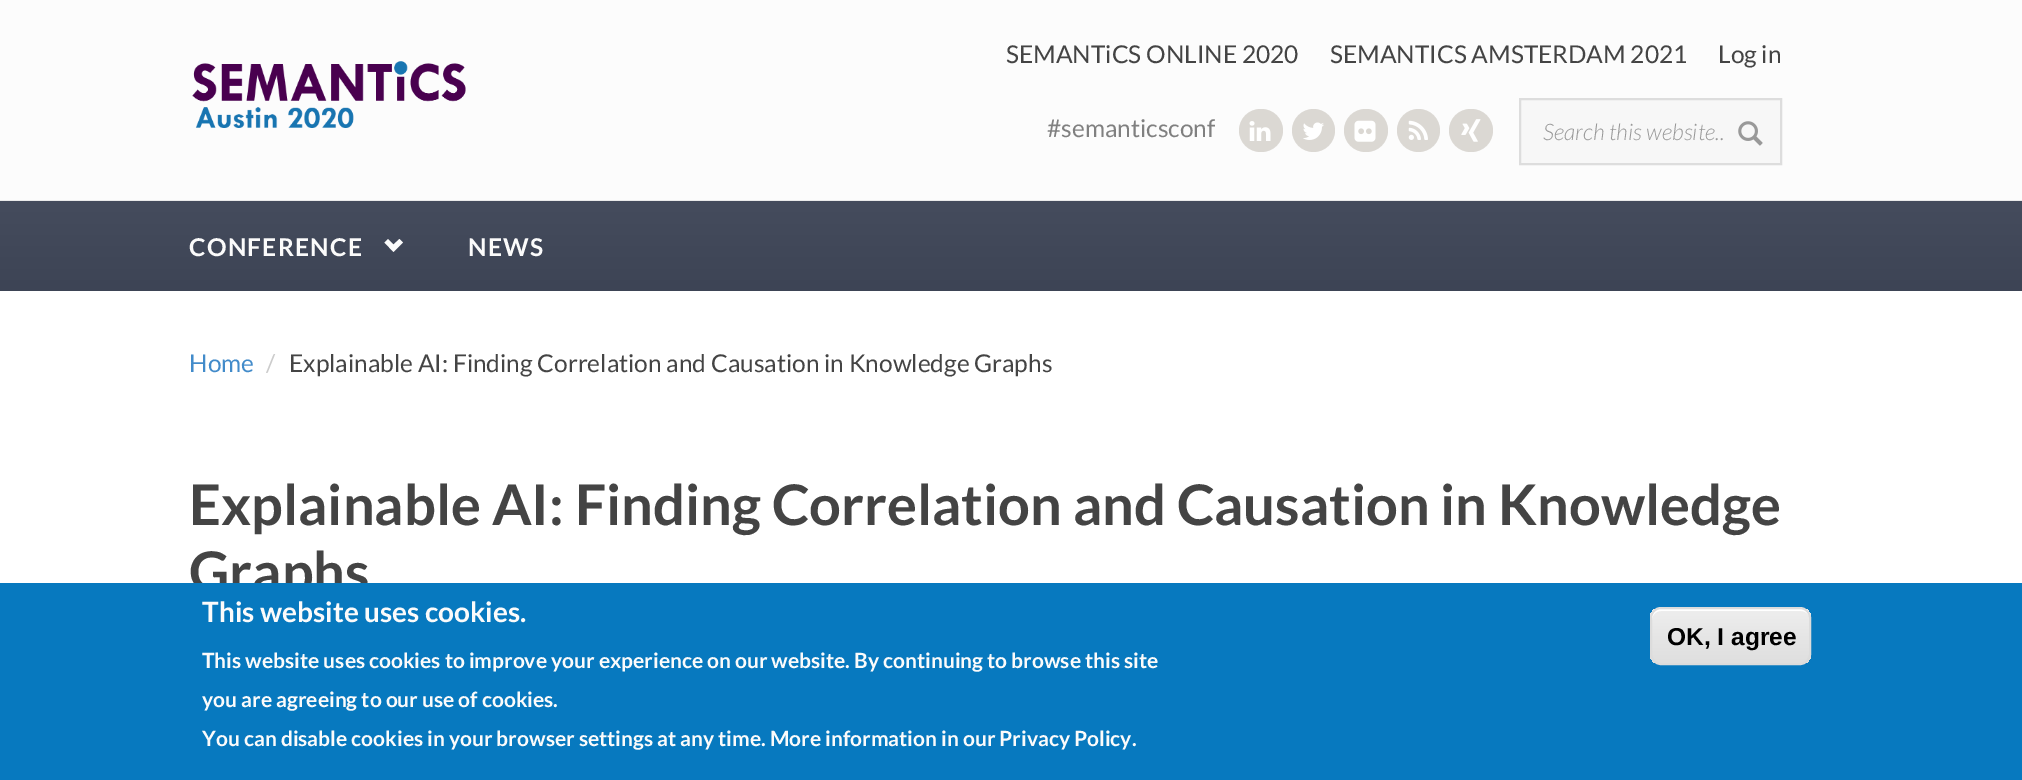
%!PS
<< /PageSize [2022 780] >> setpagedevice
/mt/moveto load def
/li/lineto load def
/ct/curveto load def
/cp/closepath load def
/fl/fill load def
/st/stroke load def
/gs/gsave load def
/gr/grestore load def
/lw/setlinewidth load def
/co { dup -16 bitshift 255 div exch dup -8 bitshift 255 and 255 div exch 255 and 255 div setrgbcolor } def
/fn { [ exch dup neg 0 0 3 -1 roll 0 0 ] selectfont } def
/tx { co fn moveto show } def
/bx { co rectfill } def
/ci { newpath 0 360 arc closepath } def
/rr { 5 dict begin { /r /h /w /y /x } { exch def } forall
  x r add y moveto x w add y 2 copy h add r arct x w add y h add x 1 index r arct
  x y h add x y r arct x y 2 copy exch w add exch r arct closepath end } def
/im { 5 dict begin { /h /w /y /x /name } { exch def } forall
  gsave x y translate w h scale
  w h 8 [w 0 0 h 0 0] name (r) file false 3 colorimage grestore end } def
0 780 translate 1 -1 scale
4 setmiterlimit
0 0 2022 780 16#FFFFFF bx
0 0 2022 200 16#FCFCFC bx
0 200 2022 1 16#EAEAEA bx
(media/1.raw) 192 61 274 67 im
16#DBD8D3 co
1239 109 44 43 21.5 rr fl
(media/2.raw) 1249 121 22 20 im
1313.5 130.5 21.5 ci fl
(media/3.raw) 1303 122 21 18 im
1344 109 44 43 21.5 rr fl
(media/4.raw) 1354 120 22 22 im
1418.5 130.5 21.5 ci fl
(media/5.raw) 1408 120 20 20 im
1449 109 44 43 21.5 rr fl
(media/6.raw) 1461 119 20 23 im
16#F7F7F7 co
1520 99 mt 1781 99 li 1781 164 li 1520 164 li cp gs fl gr
16#DDDDDD co
2 lw
st
(media/7.raw) 1738 121 25 25 im
gs 0 201 mt 2022 201 li 2022 291 li 0 291 li cp clip newpath
<< /ShadingType 2 /ColorSpace /DeviceRGB /Coords [1012 201 1012 291] /Extend [true true] /Function << /FunctionType 2 /Domain [0 1] /C0 [.271 .298 .365] /C1 [.239 .267 .333] /N 1 >> >> shfill gr
16#FBFBFB co
384.5 242.5 mt 393.5 252 li 403 242.5 li 399.5 239 li 393.5 244.5 li 388 239 li cp fl
(SEMANTiCS ONLINE 2020) 1006 63 /Lato-Regular 24.5 16#444444 tx
(SEMANTICS AMSTERDAM 2021) 1330 63 /Lato-Regular 24.5 16#444444 tx
(Log in) 1718 63 /Lato-Regular 24.5 16#444444 tx
(#semanticsconf) 1047 137 /Lato-Regular 24.5 16#808080 tx
(Search this website..) 1543 140 /Lato-LightItalic 22.75 16#999999 tx
/Lato-Bold 24.5 fn
16#FBFBFB co
189 256 mt 1.25 0 (CONFERENCE) ashow
468 256 mt 1.25 0 (NEWS) ashow
(Home) 189 372 /Lato-Regular 24.5 16#428BCA tx
(/) 266 372 /Lato-Regular 24.5 16#CCCCCC tx
(Explainable AI: Finding Correlation and Causation in Knowledge Graphs) 289 372 /Lato-Regular 24.5 16#444444 tx
(Explainable AI: Finding Correlation and Causation in Knowledge) 189 525 /Lato-Bold 56 16#444444 tx
(Graphs) 189 592 /Lato-Bold 56 16#444444 tx
0 583 2022 197 16#0779BF bx
(This website uses cookies.) 202 622 /Lato-Bold 28 16#FBFBFB tx
(This website uses cookies to improve your experience on our website. By continuing to browse this site) 202 668 /Lato-Bold 21 16#FBFBFB tx
(you are agreeing to our use of cookies.) 202 707 /Lato-Bold 21 16#FBFBFB tx
(You can disable cookies in your browser settings at any time. More information in our Privacy Policy.) 202 746 /Lato-Bold 21 16#FBFBFB tx
gs
1650 607 161 58 11 rr clip newpath
gs 1650 609 mt 1811 609 li 1811 663 li 1650 663 li cp clip newpath
<< /ShadingType 2 /ColorSpace /DeviceRGB /Coords [1731 609 1731 663] /Extend [true true] /Function << /FunctionType 3 /Domain [0 1] /Functions [<< /FunctionType 2 /Domain [0 1] /C0 [.929 .929 .929] /C1 [.929 .929 .929] /N 1 >> << /FunctionType 2 /Domain [0 1] /C0 [.929 .929 .929] /C1 [.875 .875 .875] /N 1 >>] /Bounds [.05] /Encode [0 1 0 1] >> >> shfill gr
gr
16#FFFFFF co
1661 611 mt 1801 611 li 1806 611 1810 615 1810 620 ct 1810 618 li 1810 613 1806 609 1801 609 ct 1661 609 li 1656 609 1652 613 1652 618 ct 1652 620 li 1652 615 1656 611 1661 611 ct cp fl
16#DCDCDC co
1651 608 159 56 10 rr st
(OK, I agree) 1667 645 /LiberationSans-Bold 24.5 16#000000 tx
showpage
